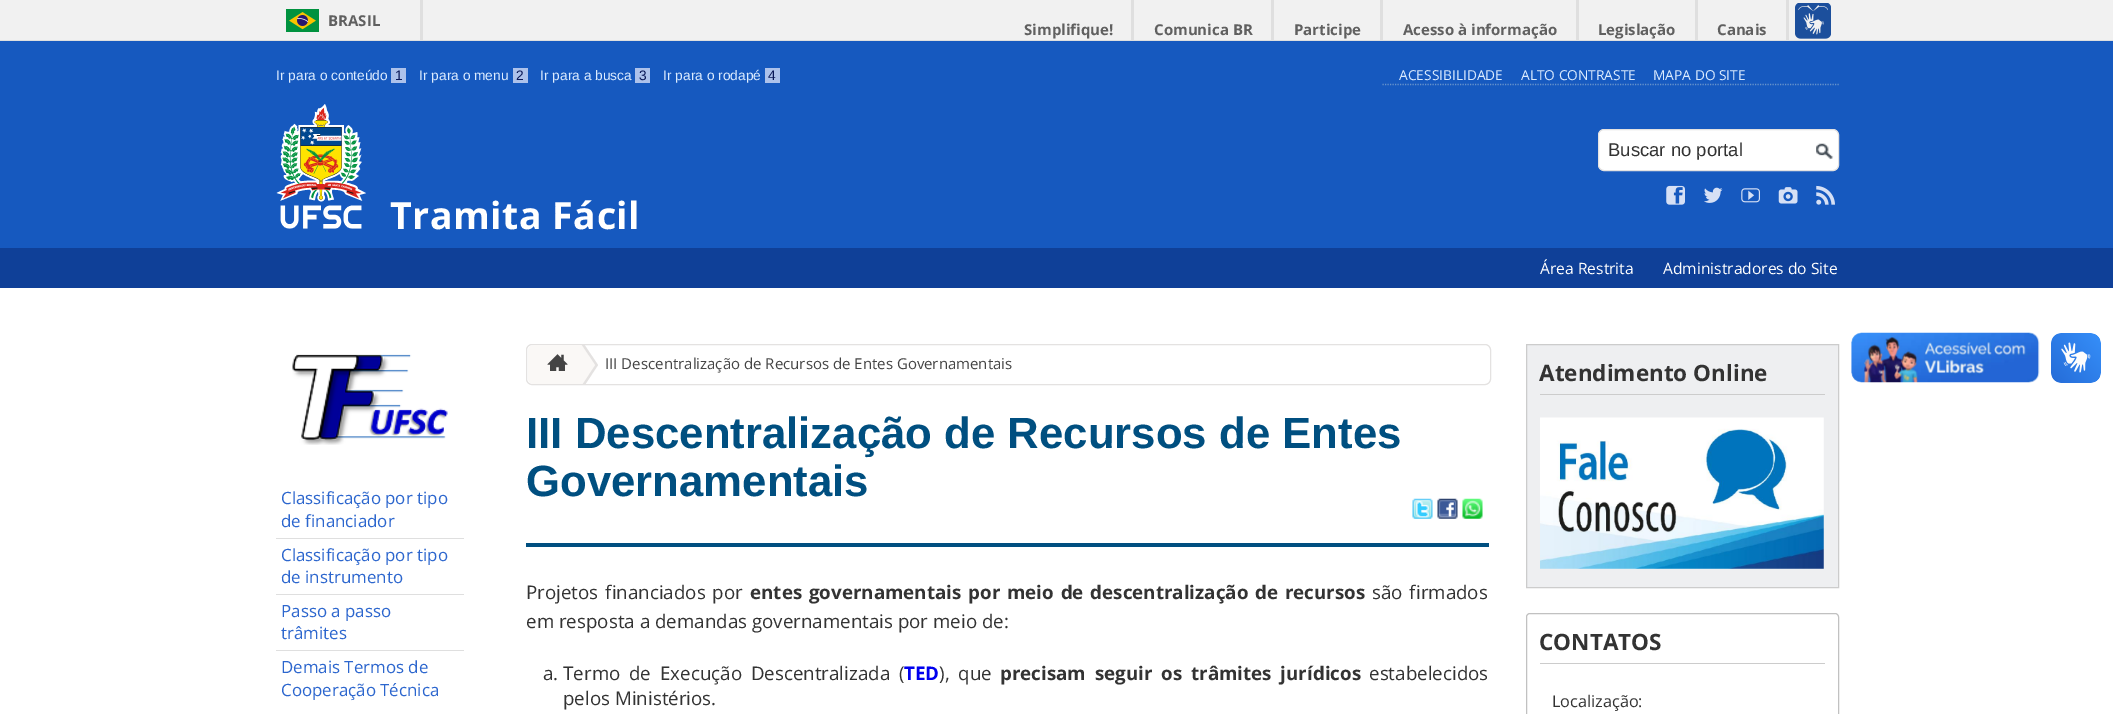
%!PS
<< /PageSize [2113 714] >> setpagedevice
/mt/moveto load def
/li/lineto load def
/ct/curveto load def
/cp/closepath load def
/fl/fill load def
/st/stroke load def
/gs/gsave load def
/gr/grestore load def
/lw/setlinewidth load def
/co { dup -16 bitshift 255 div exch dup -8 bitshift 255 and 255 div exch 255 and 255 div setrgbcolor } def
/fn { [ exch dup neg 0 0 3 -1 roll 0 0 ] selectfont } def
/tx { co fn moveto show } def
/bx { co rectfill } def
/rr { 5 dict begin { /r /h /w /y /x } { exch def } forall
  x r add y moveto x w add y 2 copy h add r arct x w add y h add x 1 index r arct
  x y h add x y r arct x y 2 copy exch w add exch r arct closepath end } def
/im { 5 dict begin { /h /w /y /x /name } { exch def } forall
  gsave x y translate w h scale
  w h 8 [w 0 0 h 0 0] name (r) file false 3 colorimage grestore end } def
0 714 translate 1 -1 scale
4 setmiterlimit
0 0 2113 714 16#FFFFFF bx
0 0 2113 40 16#F1F1F1 bx
0 40 2113 1 16#DFDFDF bx
420 0 3 40 16#DFDFDF bx
(media/1.raw) 286 9 33 23 im
(media/2.raw) 1795 3 36 36 im
1131 0 3 40 16#DFDFDF bx
1271 0 3 40 16#DFDFDF bx
1380 0 3 40 16#DFDFDF bx
1576 0 3 40 16#DFDFDF bx
1695 0 3 40 16#DFDFDF bx
1786 0 3 40 16#DFDFDF bx
0 41 2113 207 16#1659BF bx
391 68 15 15 16#ADC2EB bx
513 68 15 15 16#ADC2EB bx
635 68 15 15 16#ADC2EB bx
765 68 15 15 16#ADC2EB bx
16#6893CB co
1.2 lw
[1.25 1.25] 0 setdash
1382.5 84.5 mt 1839 84.5 li st
16#FFFFFF co
1598.5 129.5 240 41 5.5 rr gs fl gr
16#E4E2E1 co
1 lw
[] 0 setdash
st
(media/3.raw) 1816 143 18 17 im
(media/4.raw) 1666 185 19 20 im
(media/5.raw) 1704 187 19 16 im
(media/6.raw) 1741 188 19 15 im
(media/7.raw) 1778 187 20 17 im
(media/8.raw) 1816 185 19 20 im
(media/9.raw) 276 104 90 125 im
0 248 2113 40 16#0F4098 bx
(media/10.raw) 292 354 156 91 im
276 538 188 1 16#DFDFDF bx
276 594 188 1 16#DFDFDF bx
276 650 188 1 16#DFDFDF bx
16#E4E2E1 co
526.5 344.5 964 40 5.5 rr st
gs
528 345 962 39 5 rr clip newpath
16#FAF8F6 co
534 345 mt 575 345 li 575 384 li 534 384 li 530.5 384 528 381.5 528 378 ct 528 351 li 528 347.5 530.5 345 534 345 ct cp fl
gr
584.5 345 mt 598 365 li 585.5 384 li 578 384 li 578 345 li cp fl
16#FAF8F6 co
581.5 345 mt 595 365 li 582.5 384 li 575 384 li 575 345 li cp fl
(media/11.raw) 547 354 21 17 im
526 543 963 4 16#004F80 bx
(media/12.raw) 1412 498 21 21 im
(media/13.raw) 1437 498 21 21 im
(media/14.raw) 1462 498 21 21 im
16#EEEFF1 co
1526.5 344.5 mt 1838.5 344.5 li 1838.5 587.5 li 1526.5 587.5 li cp gs fl gr
16#CCCCCC co
st
1540 394 285 1 16#CCCCCC bx
(media/15.raw) 1540 417 284 152 im
16#C1C1C1 co
1526.5 613.5 312 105 3.5 rr st
1540 663 285 1 16#CCCCCC bx
(media/16.raw) 1851 332 189 51 im
(media/17.raw) 2051 333 50 50 im
(BRASIL) 328 26 /OpenSans-Bold 15 16#606060 tx
(Simplifique!) 1024 35 /OpenSans-Bold 15 16#606060 tx
(Comunica BR) 1154 35 /OpenSans-Bold 15 16#606060 tx
(Participe) 1294 35 /OpenSans-Bold 15 16#606060 tx
(Acesso à informação) 1403 35 /OpenSans-Bold 15 16#606060 tx
(Legislação) 1598 35 /OpenSans-Bold 15 16#606060 tx
(Canais) 1717 35 /OpenSans-Bold 15 16#606060 tx
(Ir para o conteúdo) 276 80 /LiberationSans-Regular 13.75 16#DCECFF tx
(1) 395 80 /LiberationSans-Regular 13.75 16#0A1857 tx
(Ir para o menu) 419 80 /LiberationSans-Regular 13.75 16#DCECFF tx
(2) 516 80 /LiberationSans-Regular 13.75 16#0A1857 tx
(Ir para a busca) 540 80 /LiberationSans-Regular 13.75 16#DCECFF tx
(3) 639 80 /LiberationSans-Regular 13.75 16#0A1857 tx
(Ir para o rodapé) 663 80 /LiberationSans-Regular 13.75 16#DCECFF tx
(4) 768 80 /LiberationSans-Regular 13.75 16#0A1857 tx
(ACESSIBILIDADE) 1399 80 /OpenSans-Regular 13.75 16#DCECFF tx
(ALTO CONTRASTE) 1521 80 /OpenSans-Regular 13.75 16#DCECFF tx
(MAPA DO SITE) 1653 80 /OpenSans-Regular 13.75 16#DCECFF tx
(Buscar no portal) 1608 156 /LiberationSans-Regular 18.5 16#333333 tx
/OpenSans-Bold 37.5 fn
16#FFFFFF co
390 229 mt .5 0 (Tramita Fácil) ashow
(Área Restrita) 1540 274 /OpenSans-Regular 15.6 16#FFFFFF tx
(Administradores do Site) 1663 274 /OpenSans-Regular 15.6 16#FFFFFF tx
(Classificação por tipo) 281 504 /OpenSans-Regular 16.9 16#2C66CE tx
(de financiador) 281 527 /OpenSans-Regular 16.9 16#2C66CE tx
(Classificação por tipo) 281 561 /OpenSans-Regular 16.9 16#2C66CE tx
(de instrumento) 281 583 /OpenSans-Regular 16.9 16#2C66CE tx
(Passo a passo) 281 617 /OpenSans-Regular 16.9 16#2C66CE tx
(trâmites) 281 639 /OpenSans-Regular 16.9 16#2C66CE tx
(Demais Termos de) 281 673 /OpenSans-Regular 16.9 16#2C66CE tx
(Cooperação Técnica) 281 696 /OpenSans-Regular 16.9 16#2C66CE tx
(III Descentralização de Recursos de Entes Governamentais) 605 369 /OpenSans-Regular 15 16#444444 tx
(III Descentralização de Recursos de Entes) 526 448 /LiberationSans-Bold 43.75 16#004F80 tx
(Governamentais) 526 496 /LiberationSans-Bold 43.75 16#004F80 tx
/OpenSans-Regular 18.75 fn
16#333333 co
526 599 mt 2 0 32 (Projetos financiados por) widthshow
/OpenSans-Bold 18.75 fn
750 599 mt 2 0 32 (entes governamentais por meio de descentralização de recursos) widthshow
/OpenSans-Regular 18.75 fn
1372 599 mt 2 0 32 (são firmados) widthshow
(em resposta a demandas governamentais por meio de:) 526 628 /OpenSans-Regular 18.75 16#333333 tx
(a.) 543 680 /OpenSans-Regular 18.75 16#333333 tx
563 680 mt 4 0 32 (Termo de Execução Descentralizada \() widthshow
(TED) 904 680 /OpenSans-Bold 18.75 16#0000EE tx
/OpenSans-Regular 18.75 fn
16#333333 co
939 680 mt 4 0 32 (\), que) widthshow
/OpenSans-Bold 18.75 fn
1000 680 mt 4 0 32 (precisam seguir os trâmites jurídicos) widthshow
(estabelecidos) 1369 680 /OpenSans-Regular 18.75 16#333333 tx
(pelos Ministérios.) 563 705 /OpenSans-Regular 18.75 16#333333 tx
(Atendimento Online) 1539 381 /OpenSans-Bold 22.5 16#333333 tx
(CONTATOS) 1539 650 /OpenSans-Bold 22.5 16#333333 tx
(Localização:) 1552 707 /OpenSans-Regular 16.25 16#333333 tx
showpage
